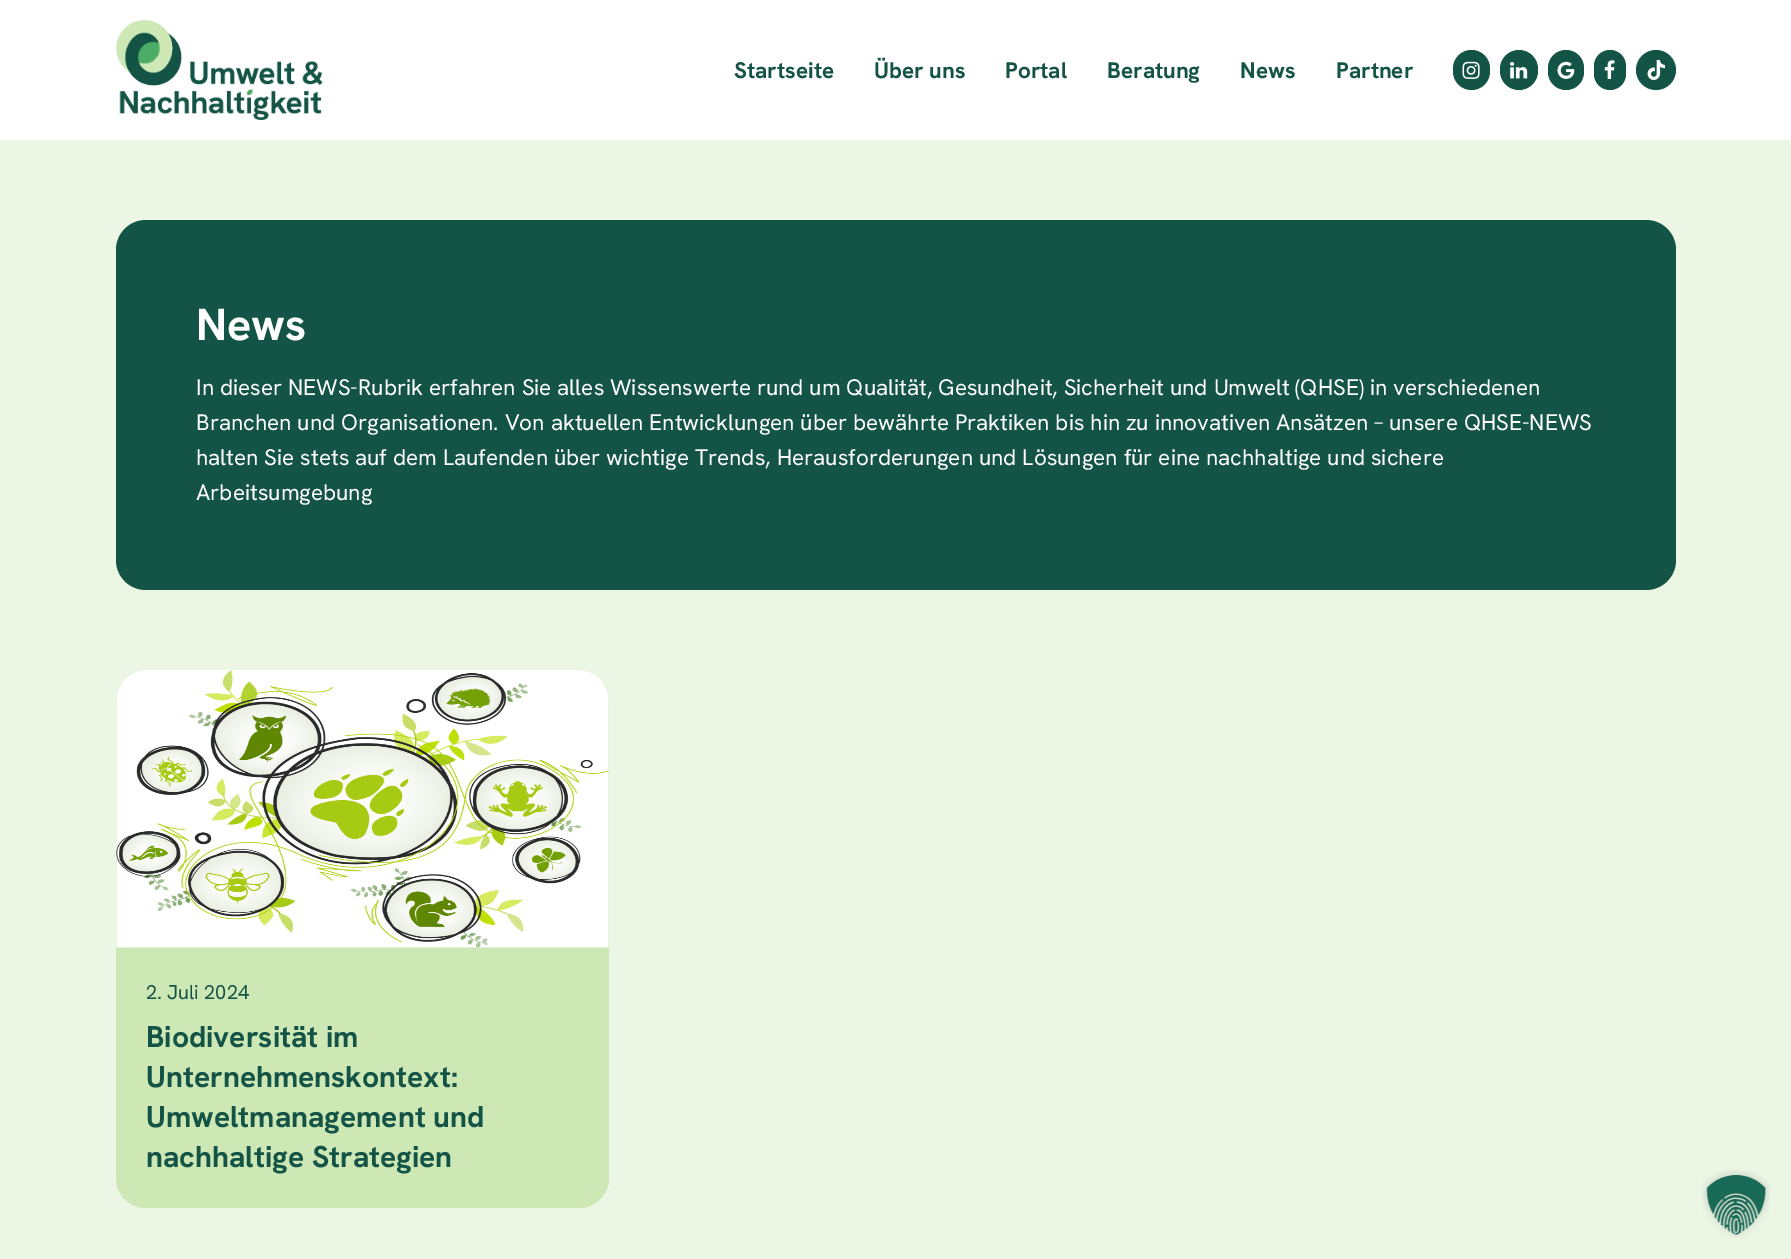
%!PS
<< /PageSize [1791 1259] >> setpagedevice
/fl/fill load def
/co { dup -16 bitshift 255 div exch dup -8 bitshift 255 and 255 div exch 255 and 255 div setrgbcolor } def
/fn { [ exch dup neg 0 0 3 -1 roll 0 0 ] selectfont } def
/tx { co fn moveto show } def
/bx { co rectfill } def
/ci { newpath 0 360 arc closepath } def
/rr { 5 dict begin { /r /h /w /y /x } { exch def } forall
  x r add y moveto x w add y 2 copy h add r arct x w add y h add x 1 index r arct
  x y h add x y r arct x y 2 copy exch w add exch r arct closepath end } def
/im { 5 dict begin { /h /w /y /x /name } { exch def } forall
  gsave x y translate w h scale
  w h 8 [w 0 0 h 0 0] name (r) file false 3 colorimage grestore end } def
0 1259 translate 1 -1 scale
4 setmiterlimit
0 0 1791 1259 16#ECF6E5 bx
0 0 1791 140 16#FFFFFF bx
(media/1.raw) 116 20 207 100 im
16#145446 co
1453 50 37 40 18.5 rr fl
(media/2.raw) 1462 61 18 18 im
1500 50 38 40 19 rr fl
(media/3.raw) 1510 62 18 17 im
1548 50 36 40 18 rr fl
(media/4.raw) 1557 61 18 18 im
1594 50 32 40 16 rr fl
(media/5.raw) 1604 60 11 19 im
1656 70 20 ci fl
(media/6.raw) 1647 60 18 20 im
116 220 1560 370 30 rr fl
16#CDE7B5 co
116 670 493 538 30 rr fl
(media/7.raw) 116 670 493 278 im
(media/8.raw) 1702 1170 68 68 im
(Startseite) 734 78 /HankenGrotesk-Bold 22.5 16#145446 tx
(Über uns) 874 78 /HankenGrotesk-Bold 22.5 16#145446 tx
(Portal) 1005 78 /HankenGrotesk-Bold 22.5 16#145446 tx
(Beratung) 1107 78 /HankenGrotesk-Bold 22.5 16#145446 tx
(News) 1240 78 /HankenGrotesk-Bold 22.5 16#145446 tx
(Partner) 1336 78 /HankenGrotesk-Bold 22.5 16#145446 tx
(News) 196 340 /HankenGrotesk-Bold 45 16#FFFFFF tx
(In dieser NEWS-Rubrik erfahren Sie alles Wissenswerte rund um Qualität, Gesundheit, Sicherheit und Umwelt \(QHSE\) in verschiedenen) 196 395 /HankenGrotesk-Regular 22.5 16#FFFFFF tx
(Branchen und Organisationen. Von aktuellen Entwicklungen über bewährte Praktiken bis hin zu innovativen Ansätzen – unsere QHSE-NEWS) 196 430 /HankenGrotesk-Regular 22.5 16#FFFFFF tx
(halten Sie stets auf dem Laufenden über wichtige Trends, Herausforderungen und Lösungen für eine nachhaltige und sichere) 196 465 /HankenGrotesk-Regular 22.5 16#FFFFFF tx
(Arbeitsumgebung) 196 500 /HankenGrotesk-Regular 22.5 16#FFFFFF tx
(2. Juli 2024) 146 999 /HankenGrotesk-Regular 20 16#145446 tx
(Biodiversität im) 146 1047 /HankenGrotesk-Bold 30 16#145446 tx
(Unternehmenskontext:) 146 1087 /HankenGrotesk-Bold 30 16#145446 tx
(Umweltmanagement und) 146 1127 /HankenGrotesk-Bold 30 16#145446 tx
(nachhaltige Strategien) 146 1167 /HankenGrotesk-Bold 30 16#145446 tx
showpage
